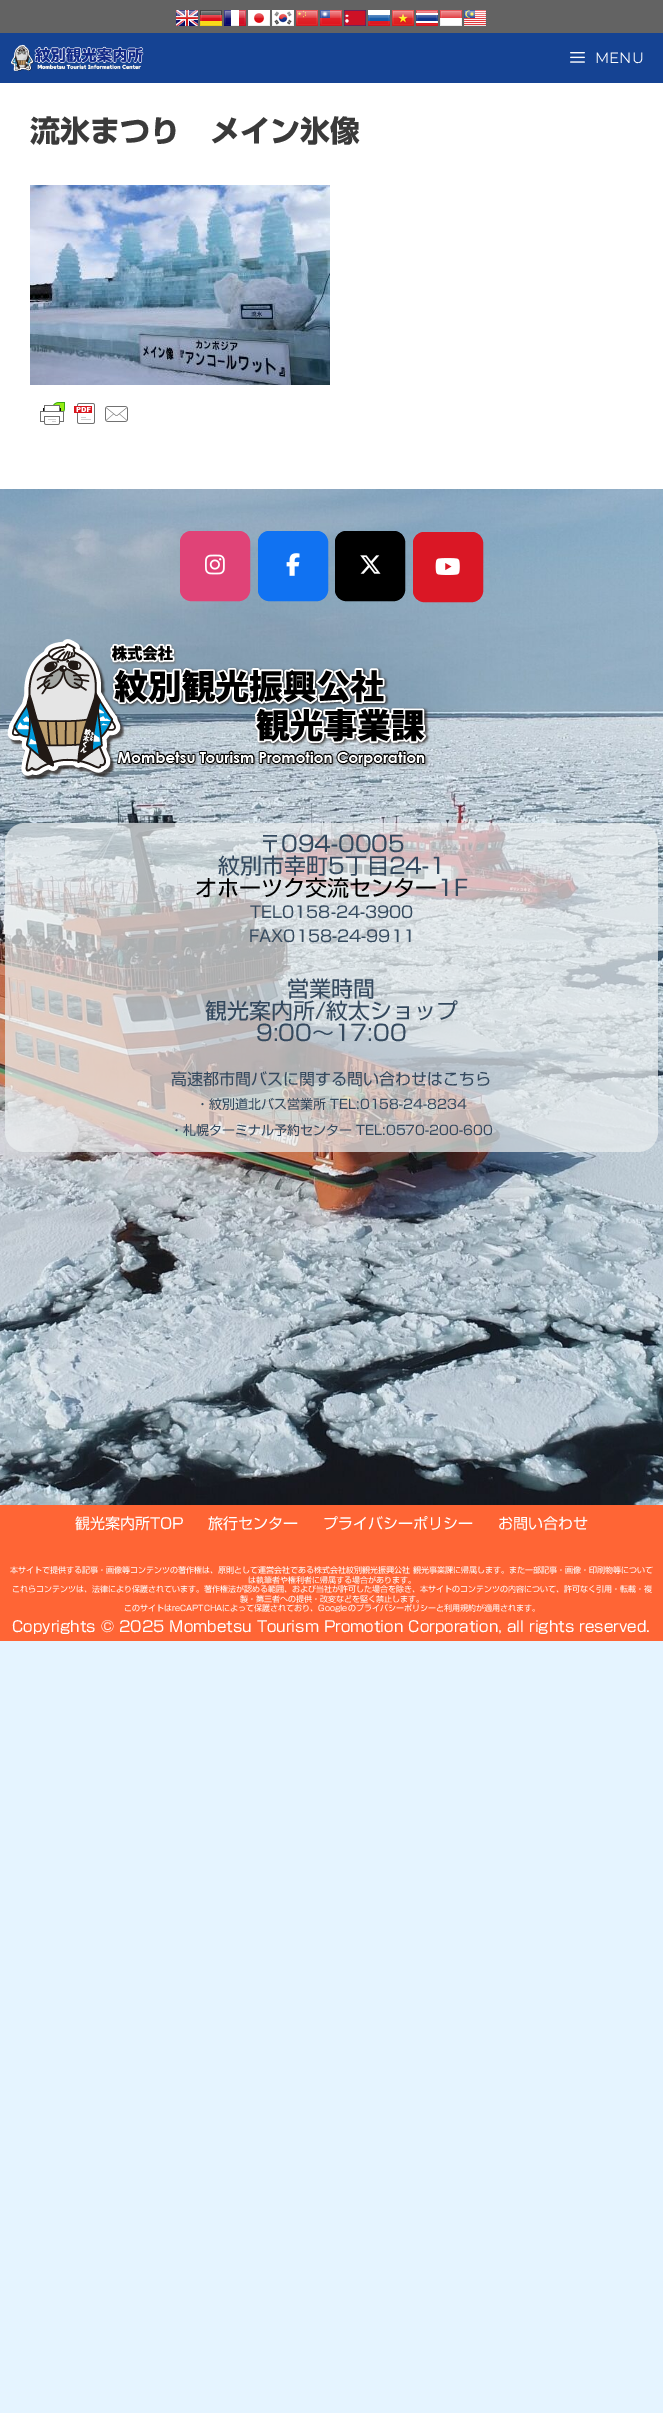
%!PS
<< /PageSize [663 2413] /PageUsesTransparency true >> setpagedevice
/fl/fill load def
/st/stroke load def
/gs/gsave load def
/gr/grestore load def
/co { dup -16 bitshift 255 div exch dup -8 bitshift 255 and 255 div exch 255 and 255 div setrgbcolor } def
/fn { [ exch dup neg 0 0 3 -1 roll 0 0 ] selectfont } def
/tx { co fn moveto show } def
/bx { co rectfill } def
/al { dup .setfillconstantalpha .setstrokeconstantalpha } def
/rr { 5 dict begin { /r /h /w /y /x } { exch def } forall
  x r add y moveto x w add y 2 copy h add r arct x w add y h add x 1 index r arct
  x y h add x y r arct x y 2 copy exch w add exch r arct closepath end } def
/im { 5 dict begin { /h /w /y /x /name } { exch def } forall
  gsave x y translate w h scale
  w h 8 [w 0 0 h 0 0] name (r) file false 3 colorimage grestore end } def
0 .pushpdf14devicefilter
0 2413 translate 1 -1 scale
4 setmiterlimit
0 0 663 2413 16#E5F4FF bx
0 0 663 33 16#636363 bx
(media/1.raw) 176 10 22 16 im
(media/2.raw) 200 10 22 16 im
(media/3.raw) 224 10 22 16 im
(media/4.raw) 248 10 22 16 im
(media/5.raw) 272 10 22 16 im
(media/6.raw) 296 10 22 16 im
(media/7.raw) 320 10 22 16 im
(media/8.raw) 344 10 22 16 im
(media/9.raw) 368 10 22 16 im
(media/10.raw) 392 10 22 16 im
(media/11.raw) 416 10 22 16 im
(media/12.raw) 440 10 22 16 im
(media/13.raw) 464 10 22 16 im
0 33 663 50 16#154393 bx
(media/14.raw) 11 44 133 28 im
(media/15.raw) 570 52 15 11 im
0 83 663 406 16#FFFFFF bx
(media/16.raw) 30 185 300 200 im
(media/17.raw) 40 402 88 23 im
(media/18.raw) 0 489 663 1016 im
16#E04377 co
180.5 531.5 69 69 10.5 rr gs fl gr
st
(media/19.raw) 205 554 20 21 im
16#1072F2 co
258.5 531.5 69 69 10.5 rr gs fl gr
st
(media/20.raw) 286 553 14 23 im
16#000000 co
335.5 531.5 69 69 10.5 rr gs fl gr
st
(media/21.raw) 360 555 21 19 im
16#DA1725 co
413.5 532.5 69 69 10.5 rr gs fl gr
st
(media/22.raw) 435 558 25 17 im
(media/23.raw) 7 639 423 142 im
0.7 al
16#ECF0F1 co
5 823 653 329 20 rr fl
1 al
0 1505 663 136 16#FF6535 bx
(MENU) 595 63 /Montserrat-Regular 15 16#FFFFFF tx
(流氷まつり　メイン氷像) 30 142 /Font-Bold 30 16#3A3A3A tx
(〒094-0005) 259 852 /Font-Regular 22 16#34495E tx
(紋別市幸町5丁目24-1) 218 874 /Font-Regular 22 16#34495E tx
(オホーツク交流センター) 195 896 /Font-Regular 22 16#000000 tx
(1F) 437 896 /Font-Regular 22 16#34495E tx
(TEL0158-24-3900) 250 918 /Font-Regular 16 16#34495E tx
(FAX0158-24-9911) 249 942 /Font-Regular 16 16#34495E tx
(営業時間) 287 997 /Font-Regular 22 16#34495E tx
(観光案内所/紋太ショップ) 205 1019 /Font-Regular 22 16#34495E tx
(9:00～17:00) 256 1041 /Font-Regular 22 16#34495E tx
(高速都市間バスに関する問い合わせはこちら) 171 1085 /Font-Regular 16 16#34495E tx
(・紋別道北バス営業所 TEL:0158-24-8234) 196 1109 /Font-Regular 13 16#34495E tx
(・札幌ターミナル予約センター TEL:0570-200-600) 170 1135 /Font-Regular 13 16#34495E tx
(観光案内所TOP) 75 1529 /Font-Regular 15 16#FFFFFF tx
(旅行センター) 208 1529 /Font-Regular 15 16#FFFFFF tx
(プライバシーポリシー) 323 1529 /Font-Regular 15 16#FFFFFF tx
(お問い合わせ) 498 1529 /Font-Regular 15 16#FFFFFF tx
(本サイトで提供する記事・画像等コンテンツの著作権は、原則として運営会社である株式会社紋別観光振興公社 観光事業課に帰属します。また一部記事・画像・印刷物等について) 10 1573 /Font-Regular 8 16#FFFFFF tx
(は執筆者や権利者に帰属する場合があります。) 248 1583 /Font-Regular 8 16#FFFFFF tx
(これらコンテンツは、法律により保護されています。著作権法が認める範囲、および当社が許可した場合を除き、本サイトのコンテンツの内容について、許可なく引用・転載・複) 12 1592 /Font-Regular 8 16#FFFFFF tx
(製・第三者への提供・改変などを堅く禁止します。) 240 1602 /Font-Regular 8 16#FFFFFF tx
(このサイトはreCAPTCHAによって保護されており、Googleのプライバシーポリシーと利用規約が適用されます。) 124 1611 /Font-Regular 8 16#FFFFFF tx
(Copyrights © 2025 Mombetsu Tourism Promotion Corporation, all rights reserved.) 12 1632 /Font-Regular 15 16#FFFFFF tx
.poppdf14devicefilter showpage
